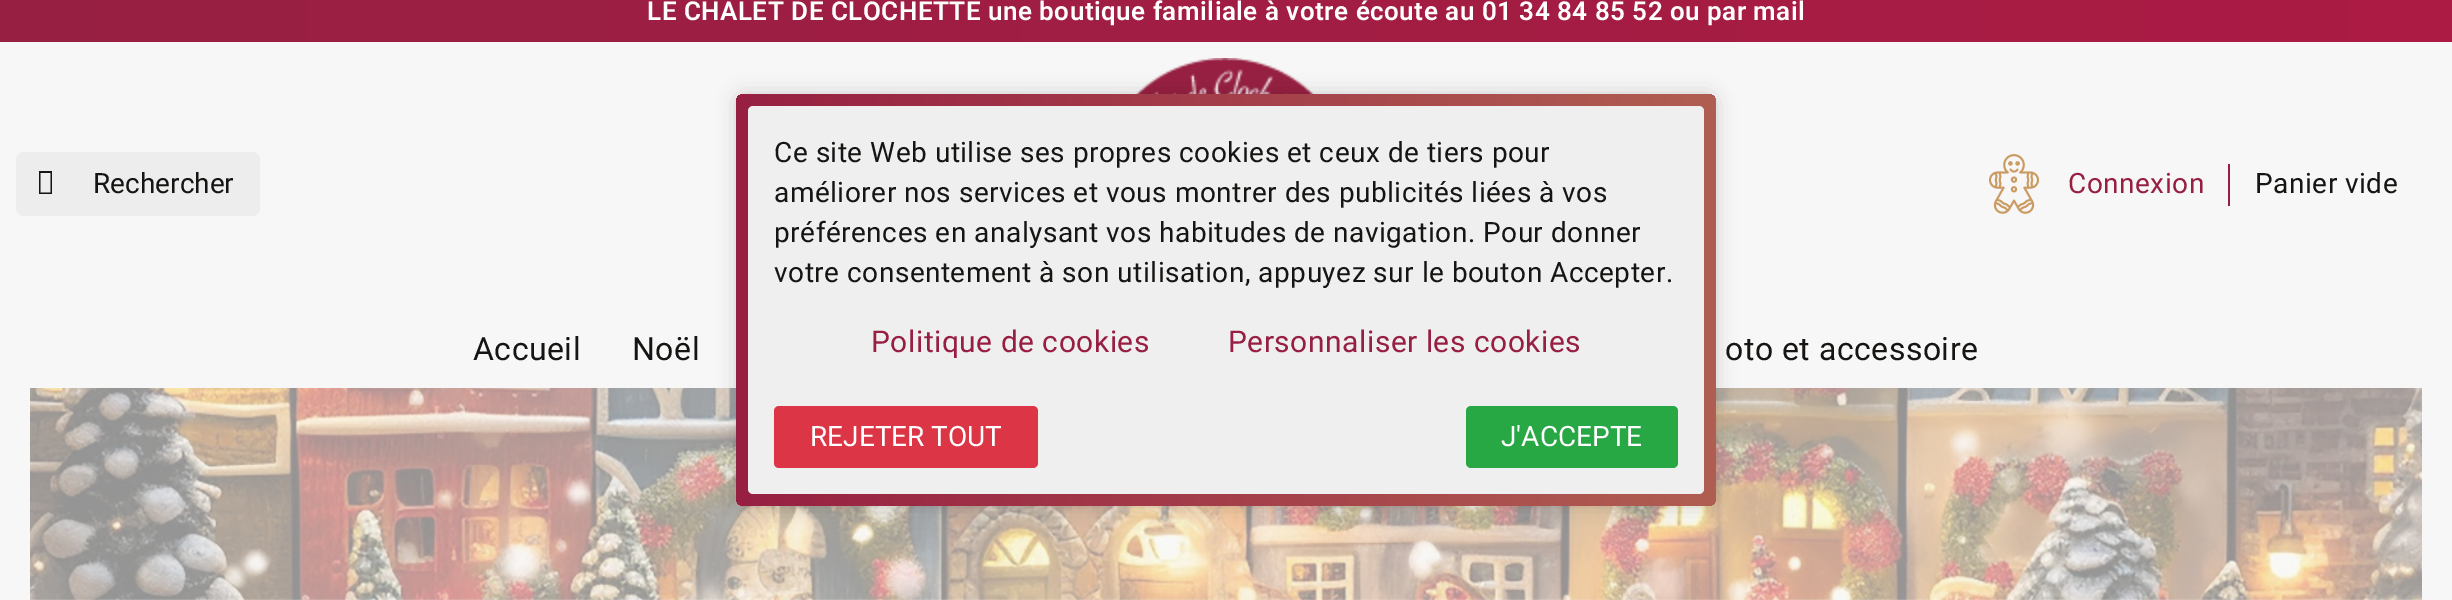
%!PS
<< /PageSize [2452 600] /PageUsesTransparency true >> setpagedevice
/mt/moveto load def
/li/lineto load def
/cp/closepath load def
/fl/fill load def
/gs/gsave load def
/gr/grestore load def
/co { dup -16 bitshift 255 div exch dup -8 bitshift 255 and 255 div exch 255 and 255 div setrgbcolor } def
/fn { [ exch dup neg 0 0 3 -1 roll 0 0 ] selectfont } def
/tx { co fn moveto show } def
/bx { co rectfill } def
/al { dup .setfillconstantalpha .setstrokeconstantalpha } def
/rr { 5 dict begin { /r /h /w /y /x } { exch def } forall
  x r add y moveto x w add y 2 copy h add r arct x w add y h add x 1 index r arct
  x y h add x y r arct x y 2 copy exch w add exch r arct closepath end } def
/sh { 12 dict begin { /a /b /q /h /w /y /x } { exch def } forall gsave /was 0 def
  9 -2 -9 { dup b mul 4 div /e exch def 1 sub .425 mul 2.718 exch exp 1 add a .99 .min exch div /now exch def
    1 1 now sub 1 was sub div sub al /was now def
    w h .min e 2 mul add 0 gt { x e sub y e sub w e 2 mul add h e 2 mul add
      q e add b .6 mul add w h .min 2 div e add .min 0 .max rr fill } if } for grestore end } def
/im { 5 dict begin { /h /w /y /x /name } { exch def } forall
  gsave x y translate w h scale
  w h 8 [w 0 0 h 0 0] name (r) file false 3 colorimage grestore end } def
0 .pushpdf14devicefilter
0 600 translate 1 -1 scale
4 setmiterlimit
0 0 2452 600 16#F7F7F7 bx
gs 0 0 mt 2452 0 li 2452 42 li 0 42 li cp clip newpath
<< /ShadingType 2 /ColorSpace /DeviceRGB /Coords [0 12 2452 12] /Extend [true true] /Function << /FunctionType 2 /Domain [0 1] /C0 [.592 .125 .259] /C1 [.675 .106 .267] /N 1 >> >> shfill gr
(media/1.raw) 1135 58 180 36 im
(media/3.raw) 30 388 2392 212 im
16#000000 co
736 94 980 412 8 10 .16 sh
gs 736 94 980 412 8 rr clip newpath
<< /ShadingType 2 /ColorSpace /DeviceRGB /Coords [736 300 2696 300] /Extend [true true] /Function << /FunctionType 2 /Domain [0 1] /C0 [.592 .125 .259] /C1 [.792 .612 .388] /N 1 >> >> shfill gr
16#EFEFEF co
748 106 956 388 5 rr fl
16#DC3545 co
774 406 264 62 5 rr fl
16#28A745 co
1466 406 212 62 5 rr fl
16#EDEDED co
16 152 244 64 8 rr fl
16#161513 co
39 194 mt 39 171 li 52 171 li 52 194 li cp 40.5 192.5 mt 50.5 192.5 li 50.5 173 li 40.5 173 li cp fl
(media/2.raw) 1988 154 52 60 im
2228 164 2 42 16#972042 bx
/Roboto-SemiBold 26 fn
16#FFFFFF co
647 20 mt .5 0 (LE CHALET DE CLOCHETTE une boutique familiale à votre écoute au 01 34 84 85 52 ou par mail) ashow
/Roboto-Regular 28 fn
16#161513 co
774 162 mt .5 0 (Ce site Web utilise ses propres cookies et ceux de tiers pour) ashow
774 202 mt .5 0 (améliorer nos services et vous montrer des publicités liées à vos) ashow
774 242 mt .5 0 (préférences en analysant vos habitudes de navigation. Pour donner) ashow
774 282 mt .5 0 (votre consentement à son utilisation, appuyez sur le bouton Accepter.) ashow
/Roboto-Regular 30 fn
16#972042 co
871 352 mt .5 0 (Politique de cookies) ashow
1228 352 mt .5 0 (Personnaliser les cookies) ashow
(REJETER TOUT) 810 446 /Roboto-Regular 28 16#FFFFFF tx
(J'ACCEPTE) 1501 446 /Roboto-Regular 28 16#FFFFFF tx
(Rechercher) 93 193 /Roboto-Regular 28 16#161513 tx
16#972042 co
2068 193 mt .5 0 (Connexion) ashow
16#161513 co
2255 193 mt .5 0 (Panier vide) ashow
/Roboto-Regular 32 fn
473 360 mt .5 0 (Accueil) ashow
632 360 mt .5 0 (Noël) ashow
1725 360 mt .5 0 (oto et accessoire) ashow
.poppdf14devicefilter showpage
